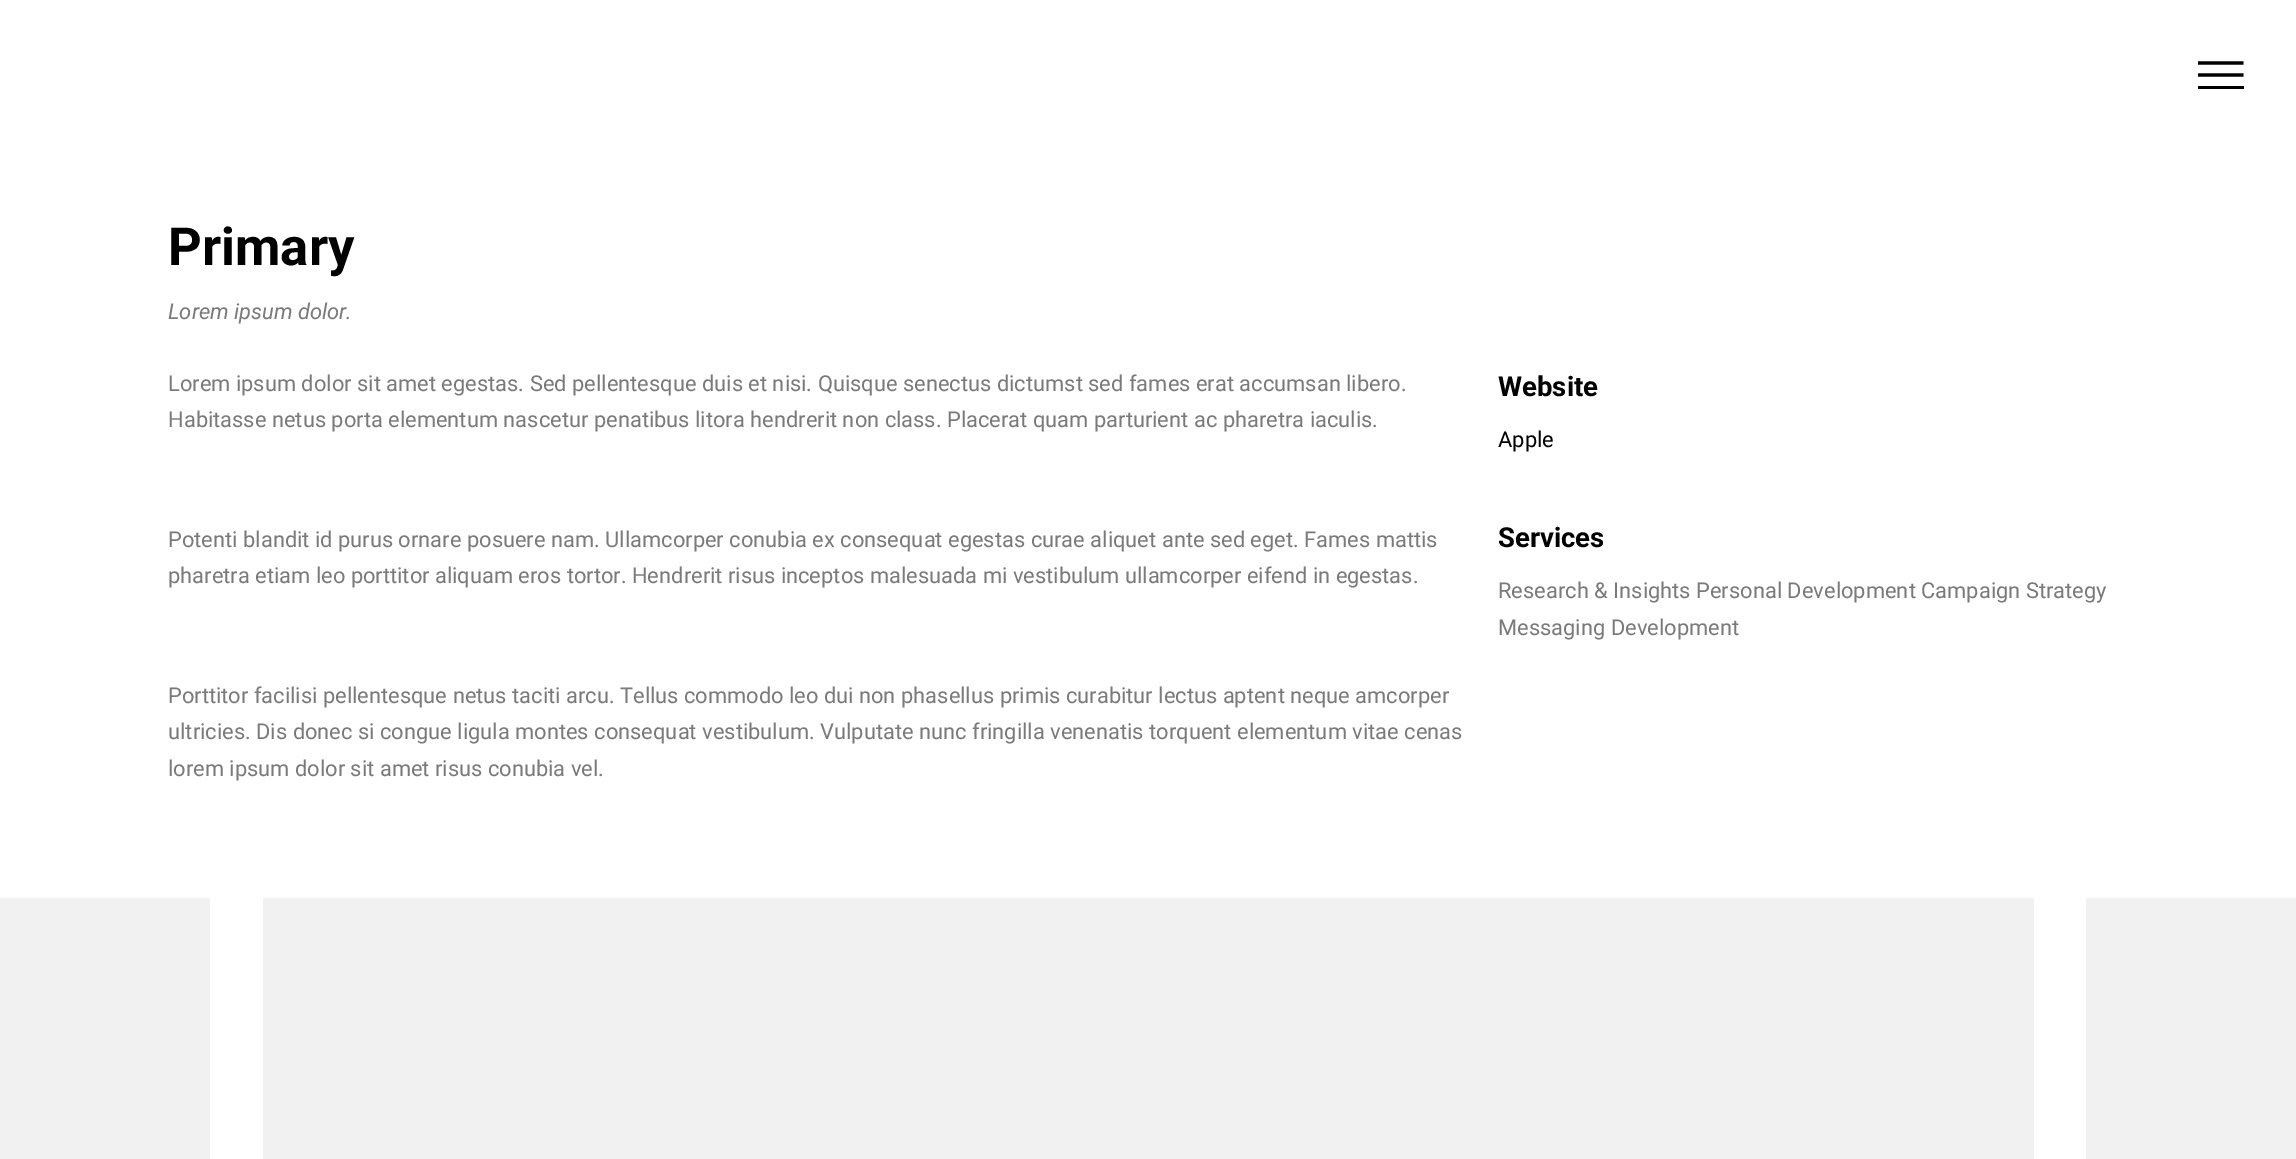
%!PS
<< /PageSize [2296 1159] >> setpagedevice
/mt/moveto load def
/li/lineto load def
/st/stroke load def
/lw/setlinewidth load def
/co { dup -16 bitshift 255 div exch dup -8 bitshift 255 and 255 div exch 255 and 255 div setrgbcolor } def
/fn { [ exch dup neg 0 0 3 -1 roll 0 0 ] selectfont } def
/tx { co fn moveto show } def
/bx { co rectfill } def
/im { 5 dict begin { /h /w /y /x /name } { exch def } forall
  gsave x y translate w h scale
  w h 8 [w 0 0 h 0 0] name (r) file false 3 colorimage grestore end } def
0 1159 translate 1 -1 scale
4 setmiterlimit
0 0 2296 1159 16#FFFFFF bx
16#000000 co
3.2 lw
2198 63 mt 2243.5 63 li st
2198 86 46 3 16#000000 bx
2198 75 mt 2243.5 75 li st
(media/1.raw) 0 897 210 262 im
(media/2.raw) 263 897 1771 262 im
(media/1.raw) 2086 897 210 262 im
(Primary) 168 265 /Roboto-Bold 52.5 16#000000 tx
(Lorem ipsum dolor.) 168 319 /Roboto-Italic 21.88 16#7A7A7A tx
(Lorem ipsum dolor sit amet egestas. Sed pellentesque duis et nisi. Quisque senectus dictumst sed fames erat accumsan libero.) 168 391 /Roboto-Regular 21.88 16#7A7A7A tx
(Habitasse netus porta elementum nascetur penatibus litora hendrerit non class. Placerat quam parturient ac pharetra iaculis.) 168 427 /Roboto-Regular 21.88 16#7A7A7A tx
(Potenti blandit id purus ornare posuere nam. Ullamcorper conubia ex consequat egestas curae aliquet ante sed eget. Fames mattis) 168 547 /Roboto-Regular 21.88 16#7A7A7A tx
(pharetra etiam leo porttitor aliquam eros tortor. Hendrerit risus inceptos malesuada mi vestibulum ullamcorper eifend in egestas.) 168 583 /Roboto-Regular 21.88 16#7A7A7A tx
(Porttitor facilisi pellentesque netus taciti arcu. Tellus commodo leo dui non phasellus primis curabitur lectus aptent neque amcorper) 168 703 /Roboto-Regular 21.88 16#7A7A7A tx
(ultricies. Dis donec si congue ligula montes consequat vestibulum. Vulputate nunc fringilla venenatis torquent elementum vitae cenas) 168 739 /Roboto-Regular 21.88 16#7A7A7A tx
(lorem ipsum dolor sit amet risus conubia vel.) 168 776 /Roboto-Regular 21.88 16#7A7A7A tx
(Website) 1498 396 /Roboto-Bold 27.5 16#000000 tx
(Apple) 1498 447 /Roboto-Regular 21.88 16#000000 tx
(Services) 1498 547 /Roboto-Bold 27.5 16#000000 tx
(Research & Insights Personal Development Campaign Strategy) 1498 598 /Roboto-Regular 21.88 16#7A7A7A tx
(Messaging Development) 1498 635 /Roboto-Regular 21.88 16#7A7A7A tx
showpage
